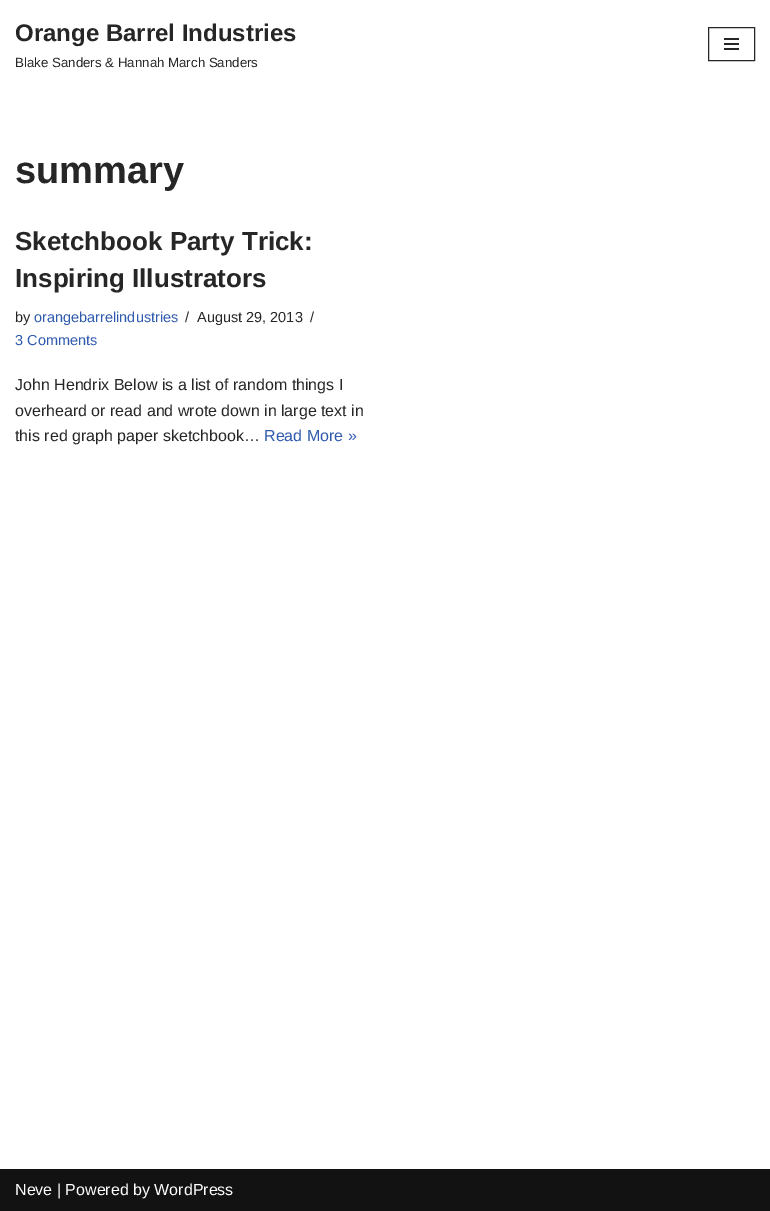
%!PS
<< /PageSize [770 1211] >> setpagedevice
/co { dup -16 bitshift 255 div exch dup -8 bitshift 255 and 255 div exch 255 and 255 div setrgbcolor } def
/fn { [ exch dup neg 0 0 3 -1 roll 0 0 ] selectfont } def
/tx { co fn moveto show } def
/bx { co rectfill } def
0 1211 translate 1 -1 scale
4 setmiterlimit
0 0 770 1211 16#FFFFFF bx
16#272626 co
708.5 27.5 46 33 rectstroke
724 38 15 2 16#272626 bx
724 43 15 2 16#272626 bx
724 48 15 2 16#272626 bx
0 1169 770 42 16#121212 bx
(Orange Barrel Industries) 15 41 /LiberationSans-Bold 24 16#272626 tx
(Blake Sanders & Hannah March Sanders) 15 67 /LiberationSans-Regular 13.3 16#272626 tx
(summary) 15 183 /LiberationSans-Bold 38 16#272626 tx
(Sketchbook Party Trick:) 15 250 /LiberationSans-Bold 26 16#272626 tx
(Inspiring Illustrators) 15 287 /LiberationSans-Bold 26 16#272626 tx
(by) 15 322 /LiberationSans-Regular 14.5 16#272626 tx
(orangebarrelindustries) 34 322 /LiberationSans-Regular 14.5 16#2F5AAE tx
(/) 185 322 /LiberationSans-Regular 14.5 16#272626 tx
(August 29, 2013) 197 322 /LiberationSans-Regular 14.5 16#272626 tx
(/) 310 322 /LiberationSans-Regular 14.5 16#272626 tx
(3 Comments) 15 345 /LiberationSans-Regular 14.5 16#2F5AAE tx
(John Hendrix Below is a list of random things I) 15 390 /LiberationSans-Regular 16 16#272626 tx
(overheard or read and wrote down in large text in) 15 416 /LiberationSans-Regular 16 16#272626 tx
(this red graph paper sketchbook…) 15 441 /LiberationSans-Regular 16 16#272626 tx
(Read More ») 264 441 /LiberationSans-Regular 16 16#2F5AAE tx
(Neve | Powered by WordPress) 15 1195 /LiberationSans-Regular 16 16#FFFFFF tx
showpage
